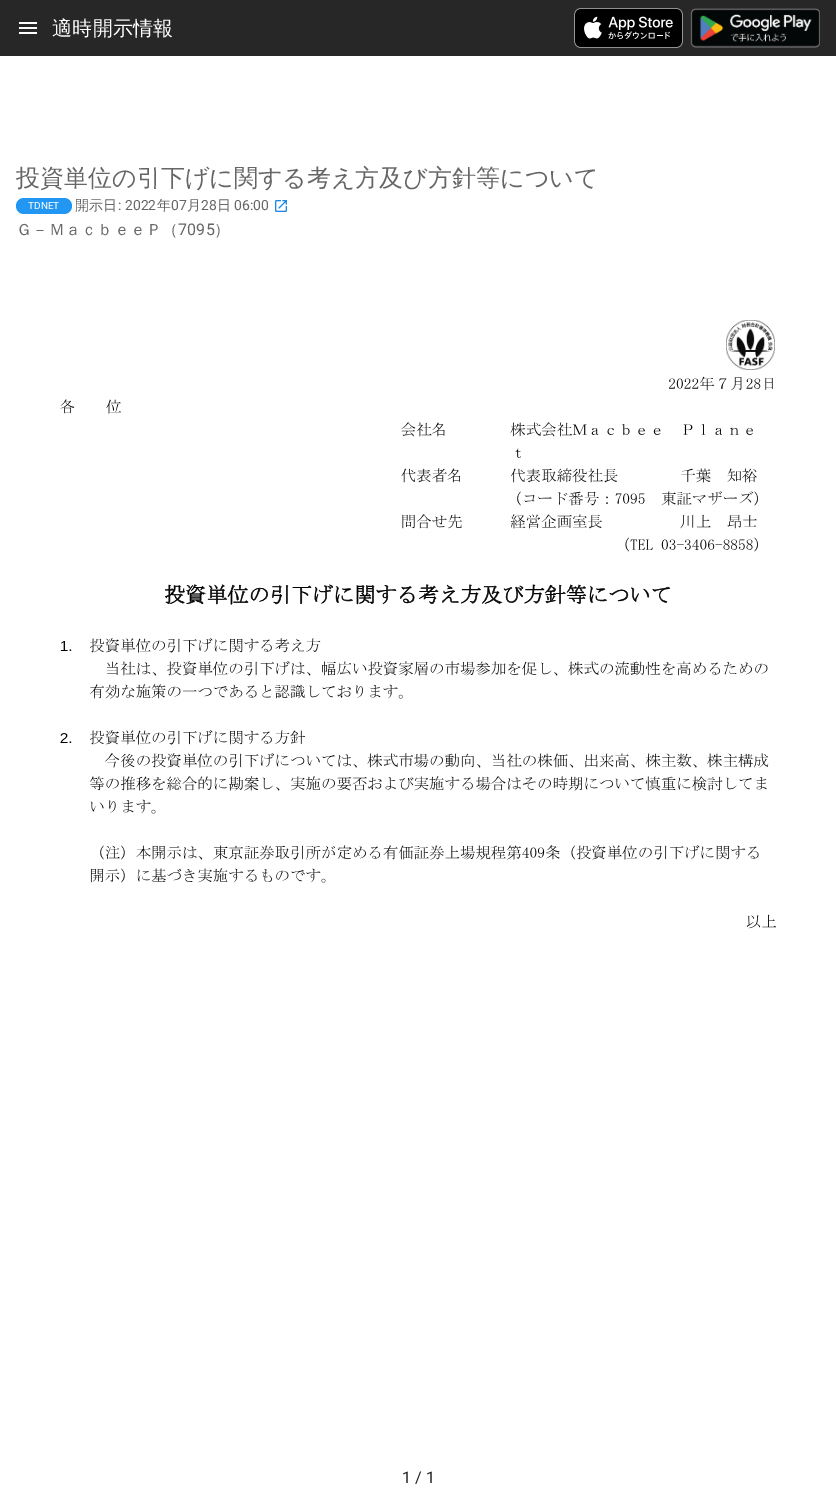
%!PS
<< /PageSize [836 1496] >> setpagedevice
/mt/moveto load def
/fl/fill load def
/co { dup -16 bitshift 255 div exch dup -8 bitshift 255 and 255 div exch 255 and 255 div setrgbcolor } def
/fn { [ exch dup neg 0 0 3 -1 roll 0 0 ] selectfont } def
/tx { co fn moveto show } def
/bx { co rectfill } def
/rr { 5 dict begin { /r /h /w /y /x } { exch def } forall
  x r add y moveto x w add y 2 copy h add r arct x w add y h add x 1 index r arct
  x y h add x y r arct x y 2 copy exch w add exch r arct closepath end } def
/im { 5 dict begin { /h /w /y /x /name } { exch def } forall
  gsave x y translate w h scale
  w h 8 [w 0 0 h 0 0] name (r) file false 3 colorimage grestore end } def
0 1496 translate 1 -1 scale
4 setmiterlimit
0 0 836 1496 16#FFFFFF bx
0 0 836 56 16#272727 bx
(media/1.raw) 19 22 18 12 im
(media/2.raw) 574 8 109 40 im
(media/3.raw) 690 8 130 40 im
16#2196F3 co
16 198 56 16 8 rr fl
(media/4.raw) 275 200 12 12 im
(media/5.raw) 60 320 716 609 im
/WenQuanYiZenHei-Medium 20 fn
16#FFFFFF co
52 35 mt .25 0 (適時開示情報) ashow
(投資単位の引下げに関する考え方及び方針等について) 16 186 /WenQuanYiZenHei-Medium 24 16#666666 tx
(TDNET) 28 209 /Roboto-Regular 10 16#FFFFFF tx
(開示日) 75 210 /WenQuanYiZenHei-Medium 14 16#666666 tx
(: 2022) 118 210 /Roboto-Regular 14 16#666666 tx
(年) 157 210 /WenQuanYiZenHei-Medium 14 16#666666 tx
(07) 171 210 /Roboto-Regular 14 16#666666 tx
(月) 187 210 /WenQuanYiZenHei-Medium 14 16#666666 tx
(28) 201 210 /Roboto-Regular 14 16#666666 tx
(日) 217 210 /WenQuanYiZenHei-Medium 14 16#666666 tx
(06:00) 234 210 /Roboto-Regular 14 16#666666 tx
/WenQuanYiZenHei-Medium 16 fn
16 235 mt .25 0 (Ｇ－ＭａｃｂｅｅＰ（) ashow
/Roboto-Regular 16 fn
178 235 mt .25 0 (7095) ashow
/WenQuanYiZenHei-Medium 16 fn
214 235 mt .25 0 (）) ashow
(1 / 1) 402 1483 /Roboto-Regular 16 16#212121 tx
showpage
